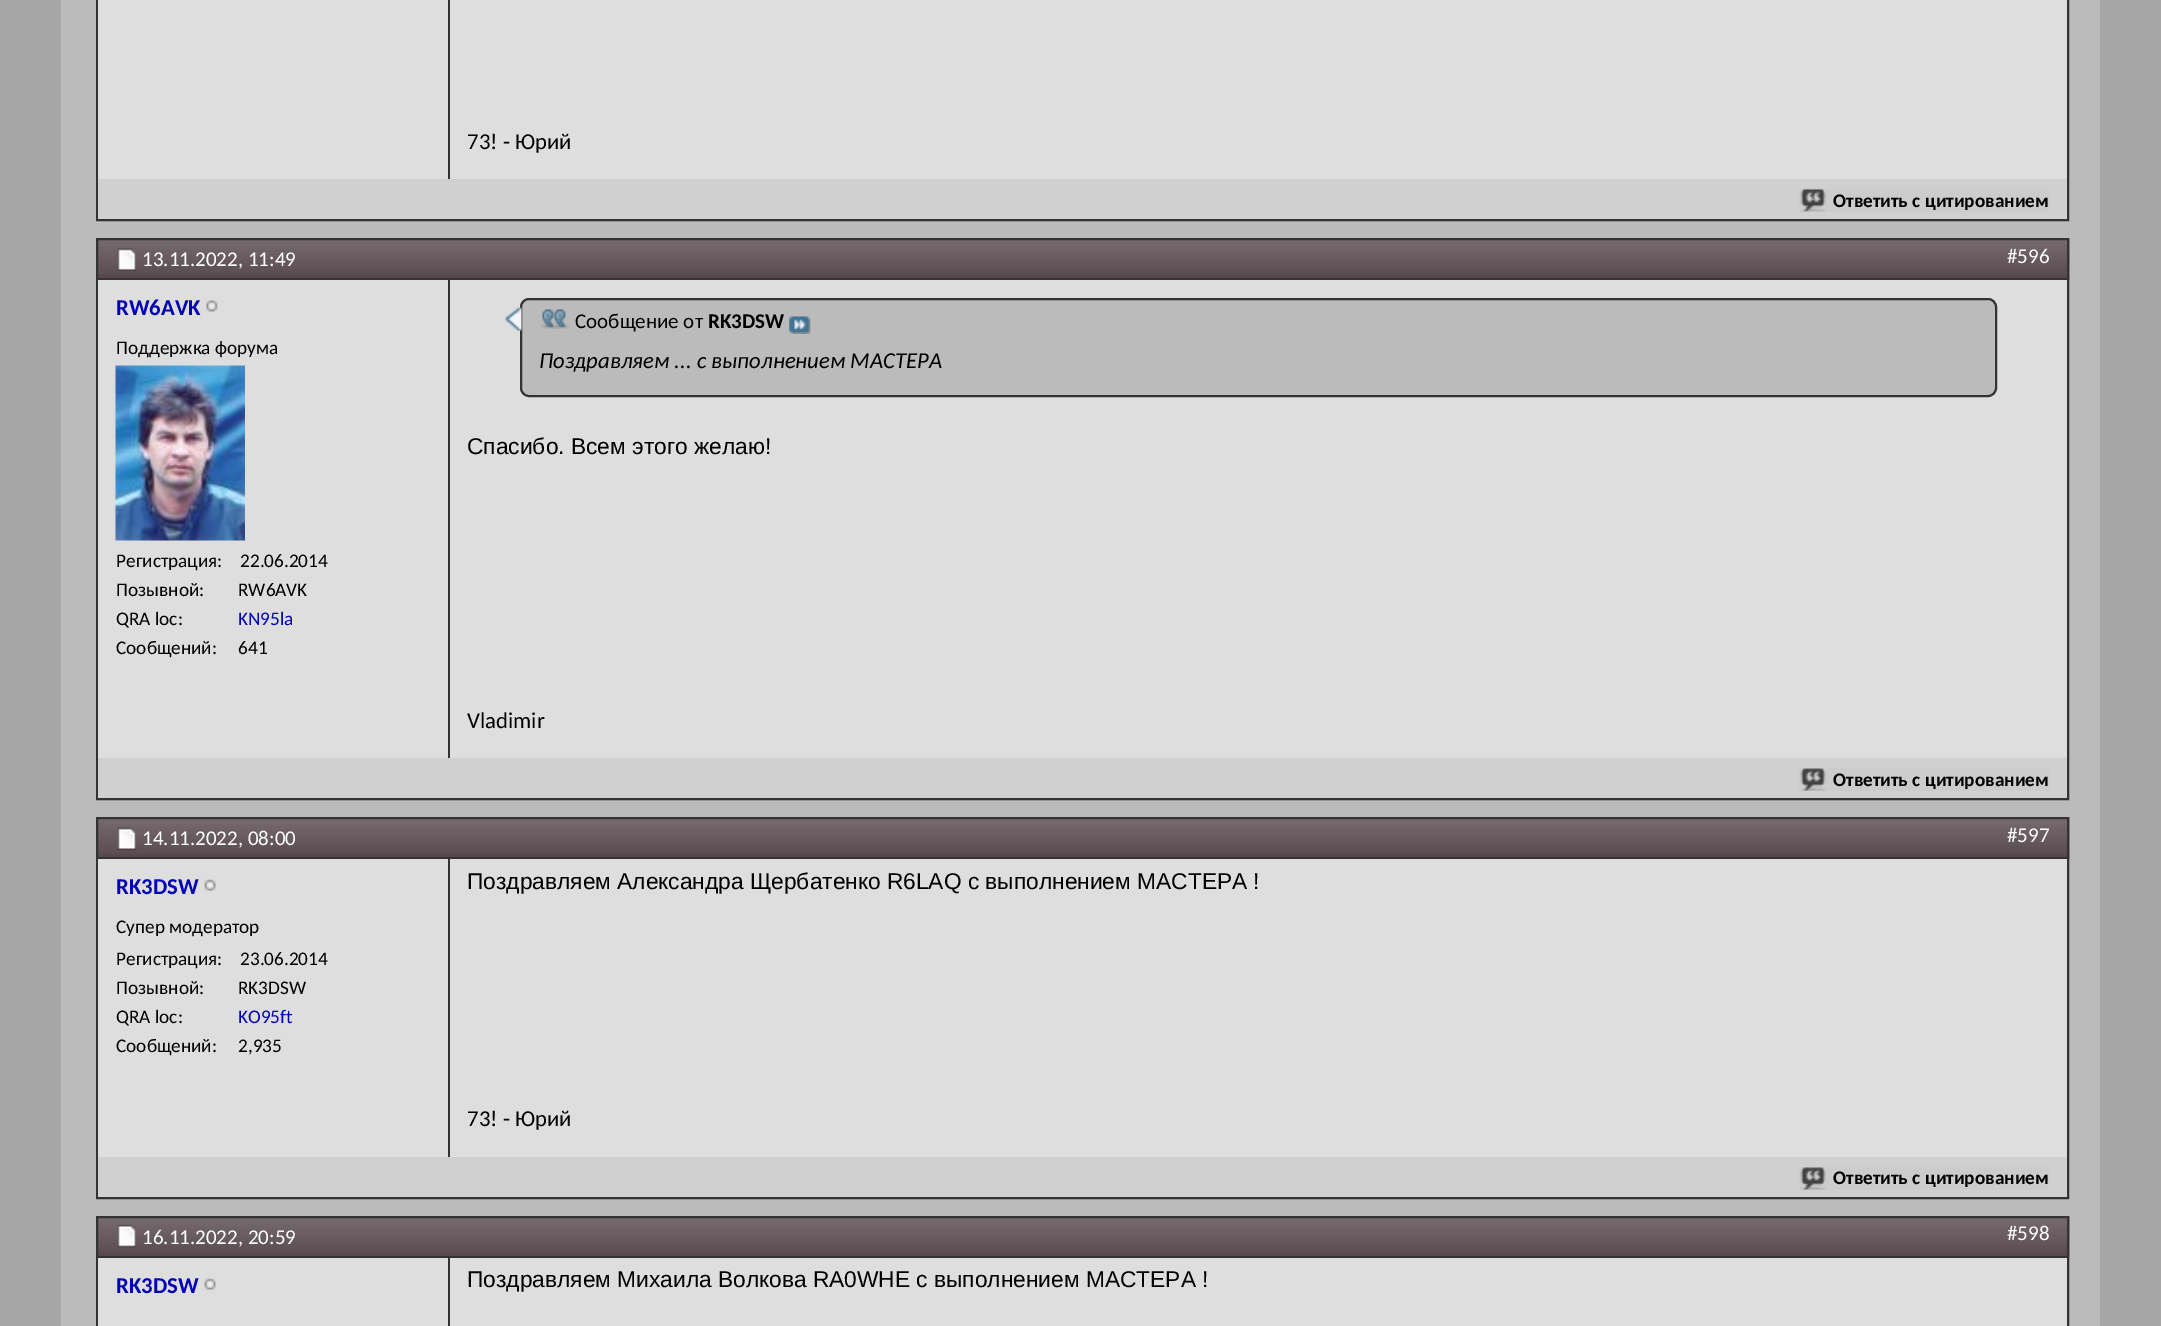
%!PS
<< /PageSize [2161 1326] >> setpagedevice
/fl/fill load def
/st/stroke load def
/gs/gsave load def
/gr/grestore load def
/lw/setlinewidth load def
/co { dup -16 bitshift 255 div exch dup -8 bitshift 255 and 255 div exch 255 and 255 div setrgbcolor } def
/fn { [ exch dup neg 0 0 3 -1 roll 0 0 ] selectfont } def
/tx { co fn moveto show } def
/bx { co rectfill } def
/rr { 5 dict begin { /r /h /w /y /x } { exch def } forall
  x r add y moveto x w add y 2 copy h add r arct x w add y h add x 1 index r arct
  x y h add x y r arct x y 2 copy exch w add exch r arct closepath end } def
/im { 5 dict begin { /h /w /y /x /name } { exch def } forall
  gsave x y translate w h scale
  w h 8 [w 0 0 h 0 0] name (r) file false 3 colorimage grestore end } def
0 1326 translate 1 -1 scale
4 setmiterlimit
0 0 2161 1326 16#A6A6A6 bx
61 0 2039 1326 16#BBBBBB bx
16#333333 co
2 lw
97 -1 1971 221 rectstroke
98 0 1969 179 16#DEDEDE bx
448 0 2 179 16#333333 bx
98 179 1969 40 16#D0D0D0 bx
1799 189 250 23 16#CCCCCC bx
(media/1.raw) 1800 188 26 24 im
16#333333 co
97 239 1971 560 rectstroke
98 240 1969 38 16#56484D bx
(media/2.raw) 98 240 1969 35 im
16#333333 co
97 239 1971 40 rectstroke
(media/3.raw) 117 248 20 23 im
98 280 1969 478 16#DEDEDE bx
(media/4.raw) 206 300 12 12 im
(media/5.raw) 115 365 130 176 im
448 280 2 478 16#333333 bx
16#BBBBBB co
521 299 1475 97 8 rr gs fl gr
16#333333 co
st
(media/6.raw) 505 307 17 24 im
(media/7.raw) 540 309 30 20 im
(media/8.raw) 789 316 22 18 im
98 758 1969 40 16#D0D0D0 bx
1799 768 250 23 16#CCCCCC bx
(media/9.raw) 1800 768 26 23 im
16#333333 co
97 818 1971 380 rectstroke
98 819 1969 38 16#56484D bx
(media/10.raw) 98 819 1969 35 im
16#333333 co
97 818 1971 40 rectstroke
(media/11.raw) 117 827 20 24 im
98 859 1969 298 16#DEDEDE bx
(media/12.raw) 204 879 12 12 im
448 859 2 298 16#333333 bx
98 1157 1969 40 16#D0D0D0 bx
1799 1167 250 23 16#CCCCCC bx
(media/9.raw) 1800 1167 26 23 im
16#333333 co
97 1217 1971 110 rectstroke
98 1218 1969 38 16#56484D bx
(media/10.raw) 98 1218 1969 35 im
16#333333 co
97 1217 1971 40 rectstroke
(media/13.raw) 117 1224 20 24 im
98 1258 1969 68 16#DEDEDE bx
(media/12.raw) 204 1278 12 12 im
448 1258 2 68 16#333333 bx
(73! - Юрий) 467 149 /Carlito-Regular 22.75 16#000000 tx
(Ответить с цитированием) 1833 207 /Carlito-Bold 19.25 16#000000 tx
(13.11.2022, 11:49) 142 266 /Carlito-Regular 21 16#FFFFFF tx
(#596) 2007 263 /Carlito-Regular 21 16#FFFFFF tx
(RW6AVK) 116 315 /Carlito-Bold 22.75 16#0404B4 tx
(Поддержка форума) 116 354 /Carlito-Regular 19.25 16#000000 tx
(Регистрация:) 116 567 /Carlito-Regular 19.25 16#000000 tx
(22.06.2014) 240 567 /Carlito-Regular 19.25 16#000000 tx
(Позывной:) 116 596 /Carlito-Regular 19.25 16#000000 tx
(RW6AVK) 238 596 /Carlito-Regular 19.25 16#000000 tx
(QRA loc:) 116 625 /Carlito-Regular 19.25 16#000000 tx
(KN95la) 238 625 /Carlito-Regular 19.25 16#0404B4 tx
(Сообщений:) 116 654 /Carlito-Regular 19.25 16#000000 tx
(641) 238 654 /Carlito-Regular 19.25 16#000000 tx
(Сообщение от) 575 328 /Carlito-Regular 21 16#000000 tx
(RK3DSW) 708 328 /Carlito-Bold 21 16#000000 tx
(Поздравляем ... с выполнением МАСТЕРА) 539 368 /Carlito-Italic 22.75 16#000000 tx
(Спасибо. Всем этого желаю!) 467 454 /LiberationSans-Regular 22.75 16#000000 tx
(Vladimir) 467 728 /Carlito-Regular 22.75 16#000000 tx
(Ответить с цитированием) 1833 786 /Carlito-Bold 19.25 16#000000 tx
(14.11.2022, 08:00) 142 845 /Carlito-Regular 21 16#FFFFFF tx
(#597) 2007 842 /Carlito-Regular 21 16#FFFFFF tx
(RK3DSW) 116 894 /Carlito-Bold 22.75 16#0404B4 tx
(Супер модератор) 116 933 /Carlito-Regular 19.25 16#000000 tx
(Регистрация:) 116 965 /Carlito-Regular 19.25 16#000000 tx
(23.06.2014) 240 965 /Carlito-Regular 19.25 16#000000 tx
(Позывной:) 116 994 /Carlito-Regular 19.25 16#000000 tx
(RK3DSW) 238 994 /Carlito-Regular 19.25 16#000000 tx
(QRA loc:) 116 1023 /Carlito-Regular 19.25 16#000000 tx
(KO95ft) 238 1023 /Carlito-Regular 19.25 16#0404B4 tx
(Сообщений:) 116 1052 /Carlito-Regular 19.25 16#000000 tx
(2,935) 238 1052 /Carlito-Regular 19.25 16#000000 tx
(Поздравляем Александра Щербатенко R6LAQ с выполнением МАСТЕРА !) 467 889 /LiberationSans-Regular 22.75 16#000000 tx
(73! - Юрий) 467 1126 /Carlito-Regular 22.75 16#000000 tx
(Ответить с цитированием) 1833 1184 /Carlito-Bold 19.25 16#000000 tx
(16.11.2022, 20:59) 142 1244 /Carlito-Regular 21 16#FFFFFF tx
(#598) 2007 1240 /Carlito-Regular 21 16#FFFFFF tx
(RK3DSW) 116 1293 /Carlito-Bold 22.75 16#0404B4 tx
(Поздравляем Михаила Волкова RA0WHE с выполнением МАСТЕРА !) 467 1287 /LiberationSans-Regular 22.75 16#000000 tx
showpage
